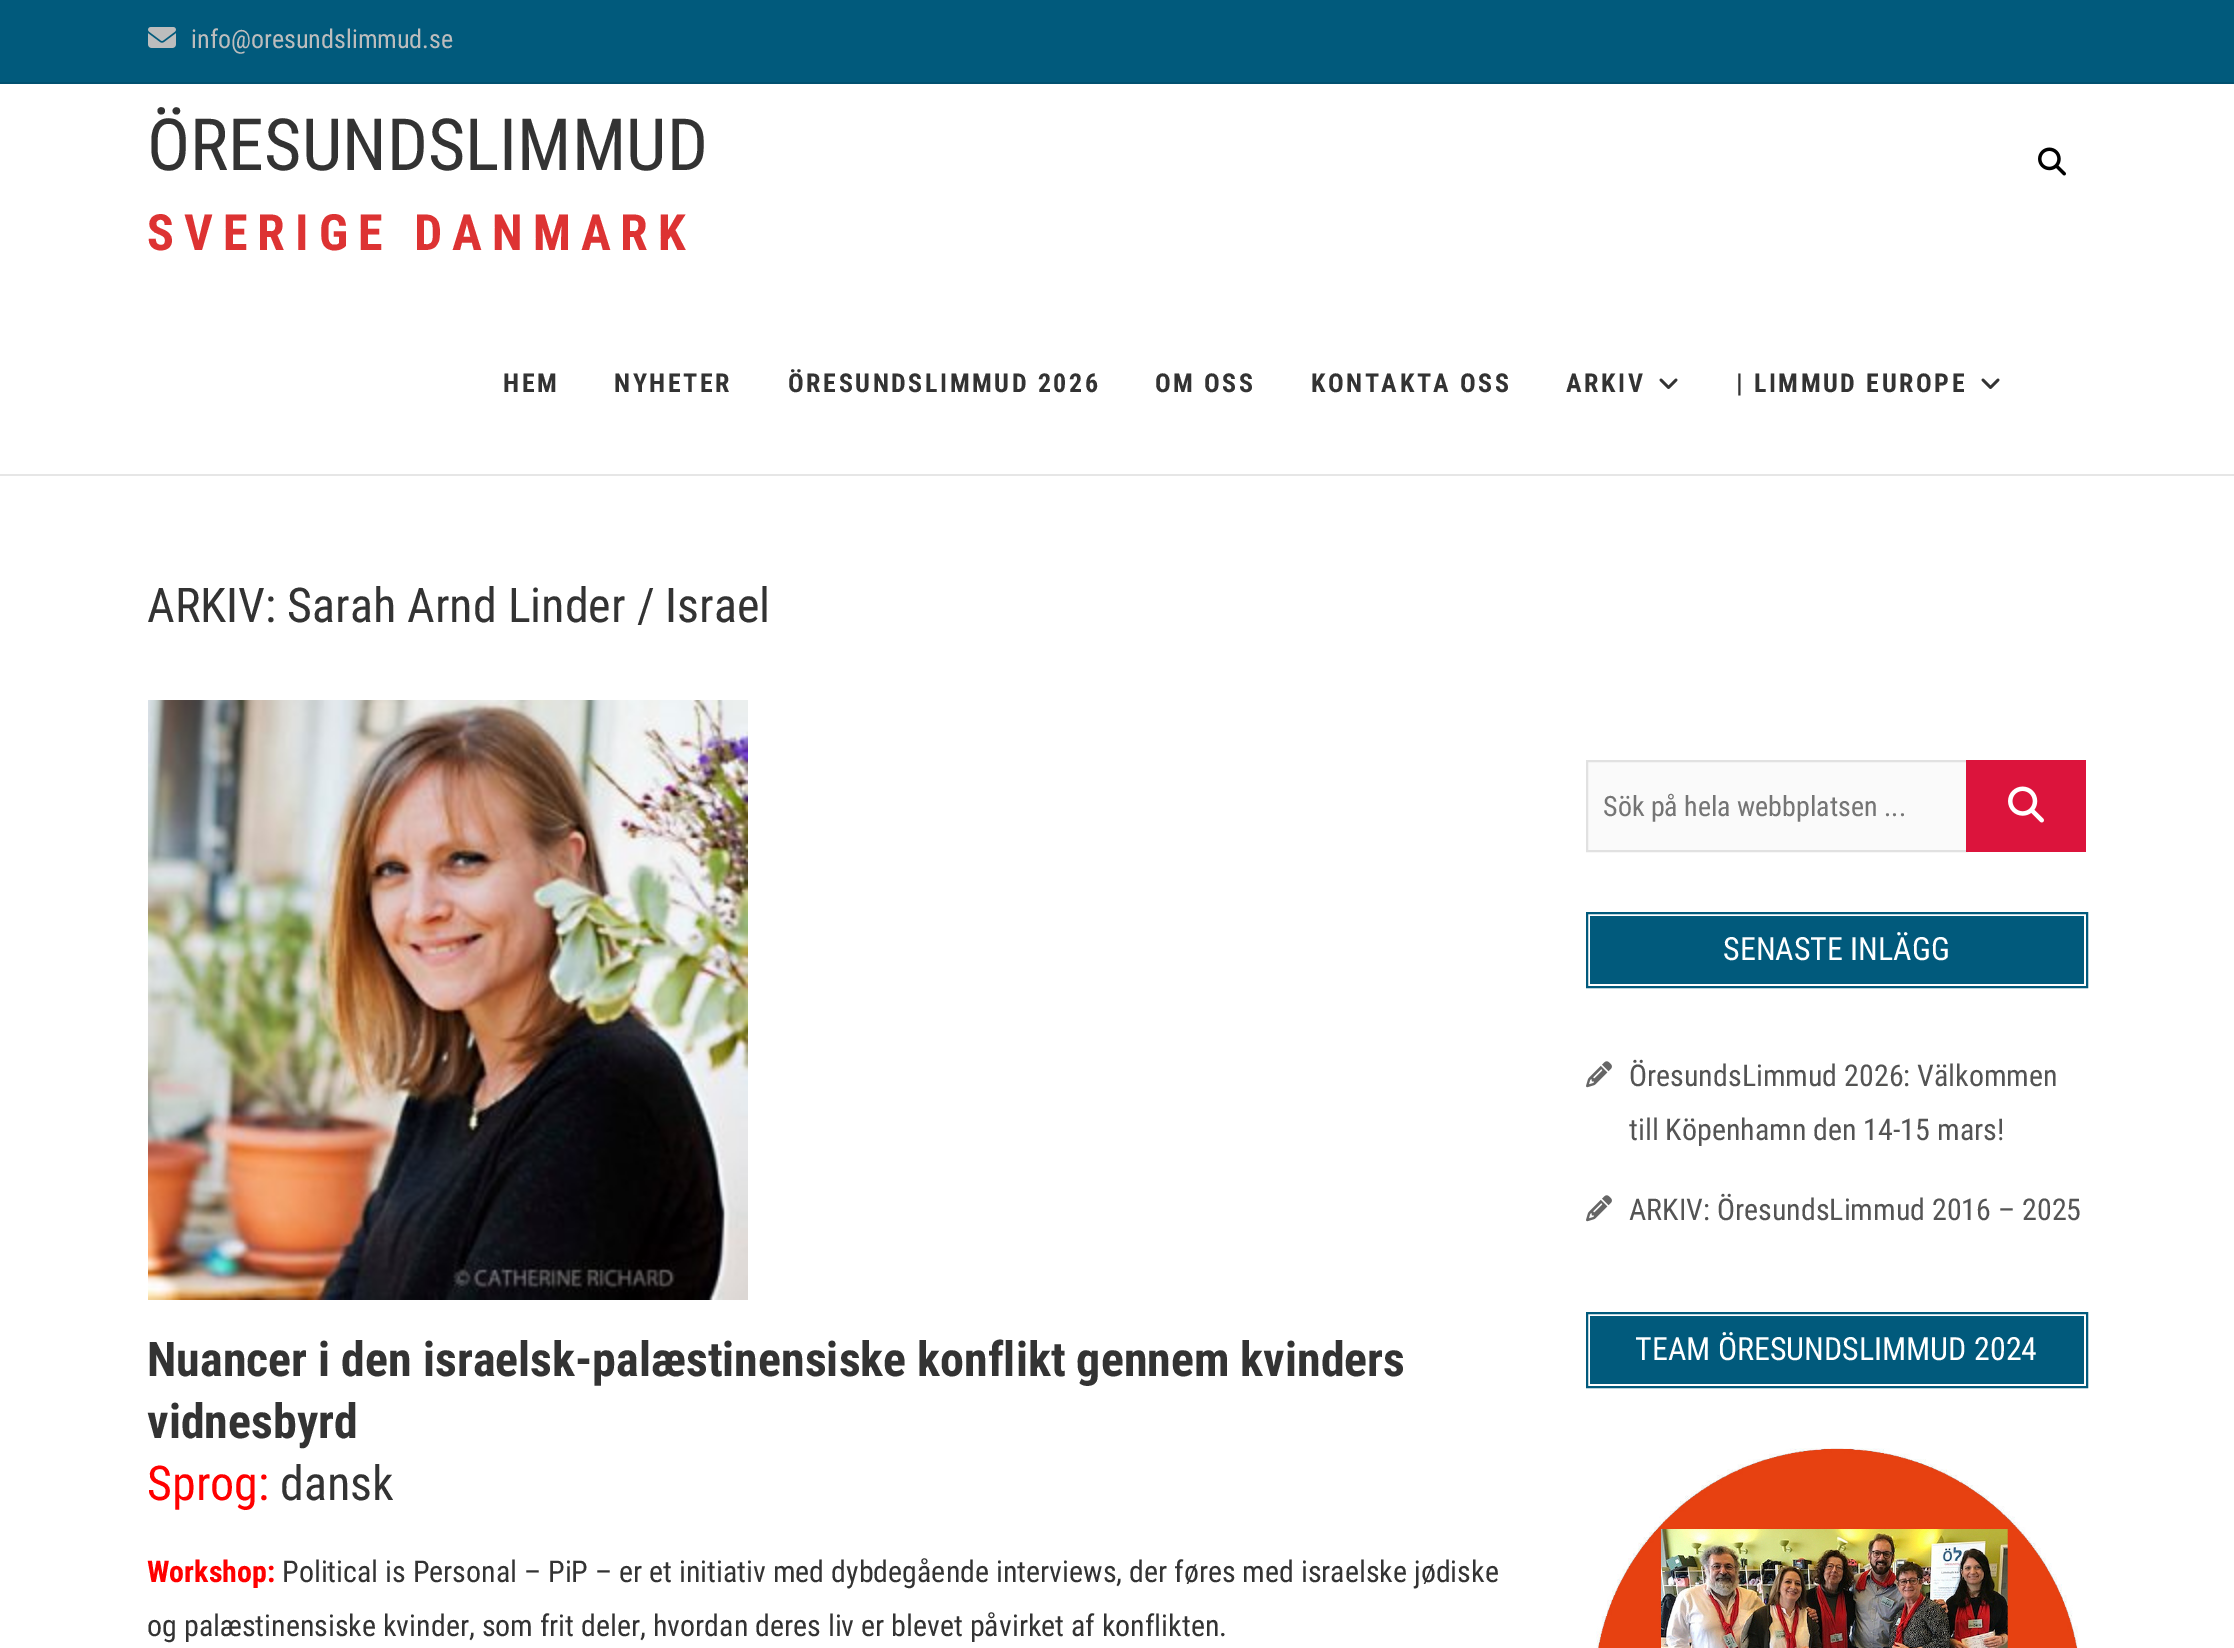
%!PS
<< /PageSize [2234 1648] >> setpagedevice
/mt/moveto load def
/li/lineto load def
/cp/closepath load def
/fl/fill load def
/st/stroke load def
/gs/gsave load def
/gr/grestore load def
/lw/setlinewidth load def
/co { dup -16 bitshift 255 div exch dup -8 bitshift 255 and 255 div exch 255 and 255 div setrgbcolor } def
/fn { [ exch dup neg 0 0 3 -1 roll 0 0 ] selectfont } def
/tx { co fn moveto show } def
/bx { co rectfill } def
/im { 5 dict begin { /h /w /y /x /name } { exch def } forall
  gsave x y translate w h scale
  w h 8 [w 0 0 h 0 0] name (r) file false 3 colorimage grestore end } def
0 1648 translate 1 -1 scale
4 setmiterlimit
0 0 2234 1648 16#FFFFFF bx
0 0 2234 82 16#015A7C bx
0 82 2234 2 16#015170 bx
(media/1.raw) 148 27 28 21 im
0 474 2234 2 16#E6E6E6 bx
(media/2.raw) 2038 147 28 29 im
(media/3.raw) 1659 378 19 11 im
(media/3.raw) 1981 378 19 11 im
16#FAFAFA co
1587 761 mt 1967 761 li 1967 851 li 1587 851 li cp gs fl gr
16#E1E1E1 co
2 lw
st
1966 760 120 92 16#DC143C bx
(media/4.raw) 2008 786 36 37 im
1590 916 494 68 16#015A7C bx
1587 913 500 74 rectstroke
(media/5.raw) 1586 1061 26 27 im
(media/5.raw) 1586 1195 26 27 im
1590 1316 494 68 16#015A7C bx
1587 1313 500 74 rectstroke
(media/6.raw) 1596 1448 482 200 im
(media/7.raw) 148 700 600 600 im
(info@oresundslimmud.se) 191 48 /RobotoCondensed-Regular 26 16#BDBDBD tx
(ÖRESUNDSLIMMUD) 147 170 /RobotoCondensed-Regular 72 16#333333 tx
/RobotoCondensed-Bold 50 fn
16#DD3333 co
147 250 mt 10 0 (SVERIGE DANMARK) ashow
/RobotoCondensed-Bold 26 fn
16#333333 co
503 392 mt 2.6 0 (HEM) ashow
614 392 mt 2.6 0 (NYHETER) ashow
788 392 mt 2.6 0 (ÖRESUNDSLIMMUD 2026) ashow
1155 392 mt 2.6 0 (OM OSS) ashow
1311 392 mt 2.6 0 (KONTAKTA OSS) ashow
1566 392 mt 2.6 0 (ARKIV) ashow
1736 392 mt 2.6 0 (| LIMMUD EUROPE) ashow
(ARKIV: Sarah Arnd Linder / Israel) 147 622 /RobotoCondensed-Regular 48 16#333333 tx
(Sök på hela webbplatsen ...) 1603 816 /RobotoCondensed-Regular 28 16#757575 tx
(SENASTE INLÄGG) 1723 960 /RobotoCondensed-Regular 32 16#FFFFFF tx
(ÖresundsLimmud 2026: Välkommen) 1629 1086 /RobotoCondensed-Regular 30 16#545454 tx
(till Köpenhamn den 14-15 mars!) 1629 1140 /RobotoCondensed-Regular 30 16#545454 tx
(ARKIV: ÖresundsLimmud 2016 – 2025) 1629 1220 /RobotoCondensed-Regular 30 16#545454 tx
(TEAM ÖRESUNDSLIMMUD 2024) 1635 1360 /RobotoCondensed-Regular 32 16#FFFFFF tx
(Nuancer i den israelsk-palæstinensiske konflikt gennem kvinders) 147 1376 /RobotoCondensed-Bold 48 16#333333 tx
(vidnesbyrd) 147 1438 /RobotoCondensed-Bold 48 16#333333 tx
(Sprog:) 147 1500 /RobotoCondensed-Regular 48 16#FF0000 tx
(dansk) 280 1500 /RobotoCondensed-Regular 48 16#333333 tx
(Workshop:) 147 1582 /RobotoCondensed-Bold 30 16#FF0000 tx
(Political is Personal – PiP – er et initiativ med dybdegående interviews, der føres med israelske jødiske) 282 1582 /RobotoCondensed-Regular 30 16#333333 tx
(og palæstinensiske kvinder, som frit deler, hvordan deres liv er blevet påvirket af konflikten.) 147 1636 /RobotoCondensed-Regular 30 16#333333 tx
showpage
